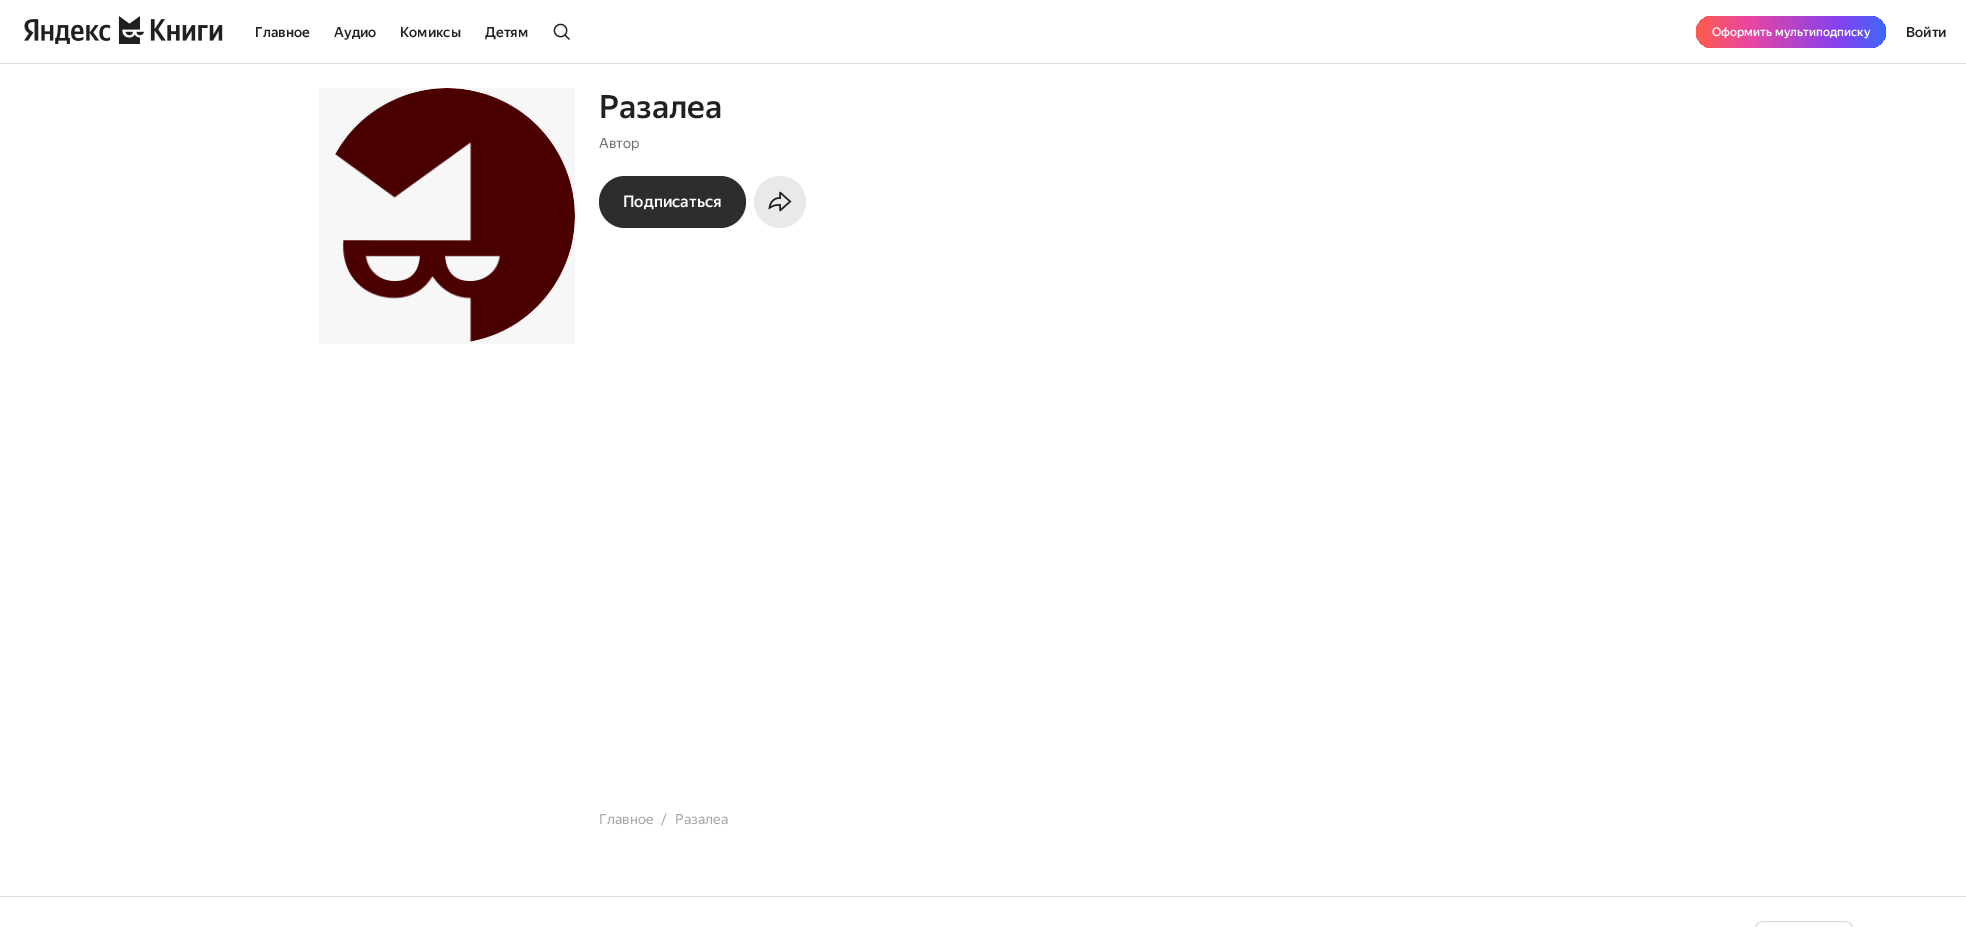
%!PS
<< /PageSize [1966 927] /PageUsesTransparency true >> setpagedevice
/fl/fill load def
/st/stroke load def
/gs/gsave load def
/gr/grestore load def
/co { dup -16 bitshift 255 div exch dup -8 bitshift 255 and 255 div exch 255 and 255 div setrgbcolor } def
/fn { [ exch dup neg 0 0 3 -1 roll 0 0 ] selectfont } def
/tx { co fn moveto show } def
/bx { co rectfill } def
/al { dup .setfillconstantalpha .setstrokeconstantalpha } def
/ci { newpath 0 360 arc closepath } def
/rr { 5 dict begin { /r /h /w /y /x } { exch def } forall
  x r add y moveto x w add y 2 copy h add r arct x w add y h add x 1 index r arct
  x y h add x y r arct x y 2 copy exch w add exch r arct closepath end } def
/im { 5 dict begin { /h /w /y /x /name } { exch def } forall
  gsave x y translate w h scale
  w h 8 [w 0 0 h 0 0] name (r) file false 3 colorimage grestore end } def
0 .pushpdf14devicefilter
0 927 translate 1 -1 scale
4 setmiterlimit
0 0 1966 927 16#FFFFFF bx
0 63 1966 1 16#DEDEDE bx
(media/1.raw) 24 16 199 28 im
(media/2.raw) 553 23 17 17 im
gs 1696 16 190 32 16 rr clip newpath
<< /ShadingType 2 /ColorSpace /DeviceRGB /Coords [1696 32 1886 32] /Extend [true true] /Function << /FunctionType 3 /Domain [0 1] /Functions [<< /FunctionType 2 /Domain [0 1] /C0 [1 .361 .302] /C1 [.922 .275 .624] /N 1 >> << /FunctionType 2 /Domain [0 1] /C0 [.922 .275 .624] /C1 [.514 .255 .937] /N 1 >> << /FunctionType 2 /Domain [0 1] /C0 [.514 .255 .937] /C1 [.247 .408 .976] /N 1 >>] /Bounds [.27 .75] /Encode [0 1 0 1 0 1] >> >> shfill gr
(media/3.raw) 335 88 240 254 im
0.03 al
319 88 256 256 16#000000 bx
1 al
16#2D2D2D co
599 176 147 52 26 rr fl
16#E9E9E9 co
780 202 26 ci fl
(media/4.raw) 768 191 24 21 im
0 896 1966 1 16#DEDEDE bx
1755.5 921.5 97 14 7.5 rr st
(Главное) 255 37 /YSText-Medium 14 16#22201F tx
(Аудио) 334 37 /YSText-Medium 14 16#22201F tx
(Комиксы) 400 37 /YSText-Medium 14 16#22201F tx
(Детям) 485 37 /YSText-Medium 14 16#22201F tx
(Оформить мультиподписку) 1712 36 /YSText-Medium 12 16#FFFFFF tx
(Войти) 1906 37 /YSText-Medium 14 16#22201F tx
(Разалеа) 599 118 /YSText-Medium 32 16#22201F tx
(Автор) 599 148 /YSText-Regular 14 16#747272 tx
(Подписаться) 623 207 /YSText-Medium 16 16#FFFFFF tx
(Главное) 599 824 /YSText-Regular 14 16#A7A7A7 tx
(/) 661 824 /YSText-Regular 14 16#A7A7A7 tx
(Разалеа) 675 824 /YSText-Regular 14 16#A7A7A7 tx
.poppdf14devicefilter showpage
